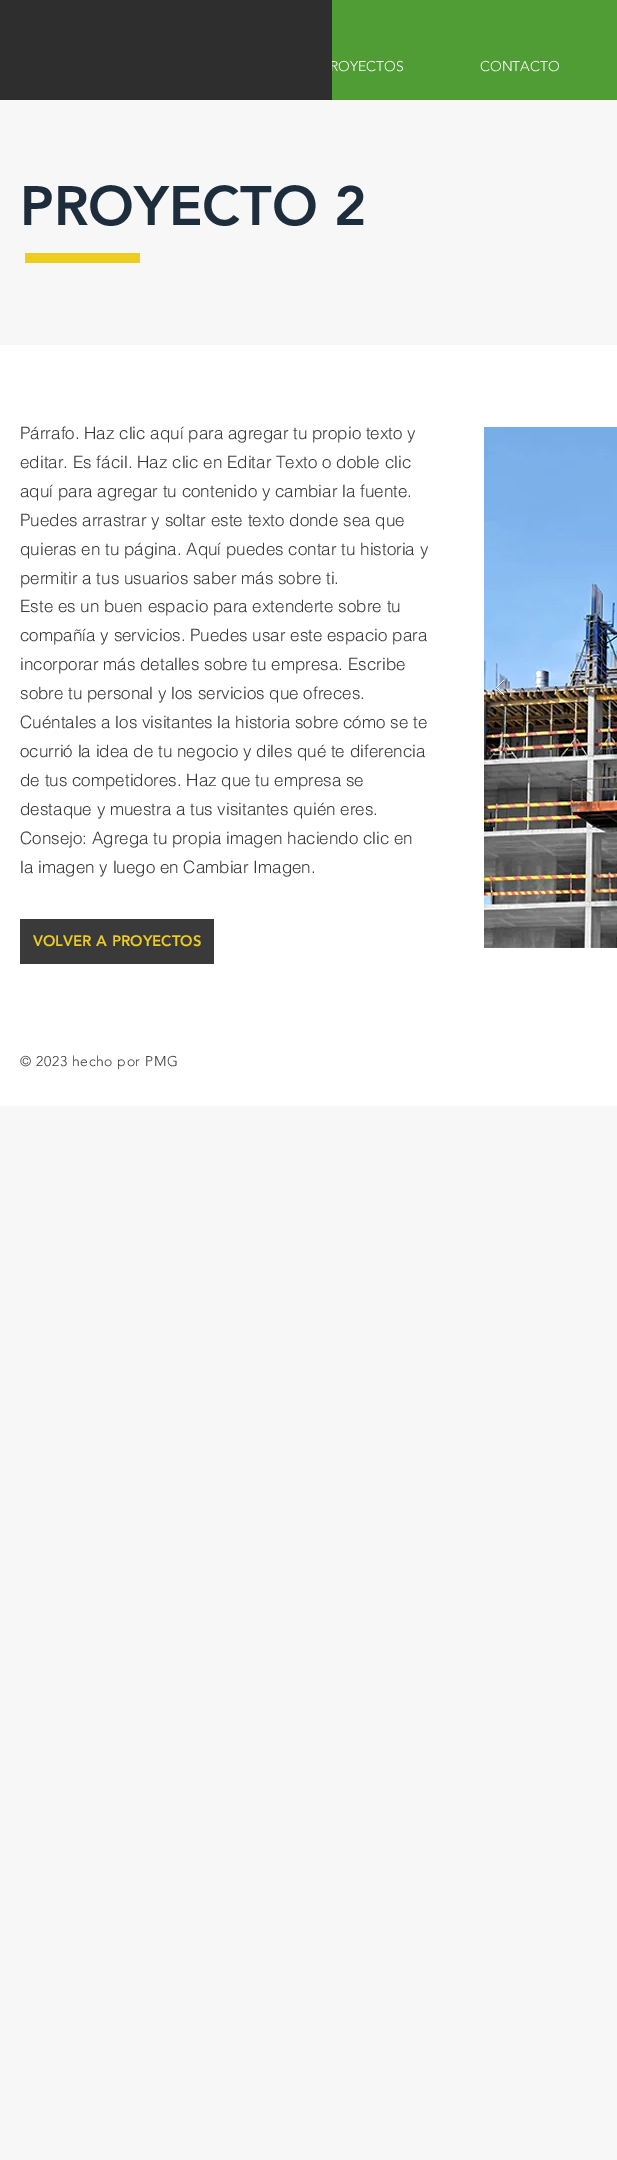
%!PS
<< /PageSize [617 2160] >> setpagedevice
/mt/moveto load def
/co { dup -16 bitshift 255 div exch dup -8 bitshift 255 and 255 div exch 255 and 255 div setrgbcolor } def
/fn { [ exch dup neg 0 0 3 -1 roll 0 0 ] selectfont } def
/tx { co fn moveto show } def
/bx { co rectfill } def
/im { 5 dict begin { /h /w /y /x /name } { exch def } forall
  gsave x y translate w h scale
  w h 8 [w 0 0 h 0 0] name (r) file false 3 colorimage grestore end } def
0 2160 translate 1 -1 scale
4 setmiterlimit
0 0 617 2160 16#F7F7F7 bx
332 0 285 100 16#509C35 bx
25 253 115 10 16#EDCD1F bx
0 345 617 761 16#FFFFFF bx
20 919 194 45 16#3B3A3A bx
(media/1.raw) 484 427 133 521 im
(media/2.raw) 496 680 8 16 im
(ROYECTOS) 330 71 /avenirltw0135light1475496-Light 14 16#FFFFFF tx
0 0 332 100 16#2F2E2E bx
(CONTACTO) 480 71 /avenirltw0135light1475496-Light 14 16#FFFFFF tx
(PROYECTO 2) 20 225 /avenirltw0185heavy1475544-Black 55 16#1E2D3B tx
(Párrafo. Haz clic aquí para agregar tu propio texto y) 20 439 /helvetica-Light 17 16#3B3A3A tx
(editar. Es fácil. Haz clic en Editar Texto o doble clic) 20 468 /helvetica-Light 17 16#3B3A3A tx
(aquí para agregar tu contenido y cambiar la fuente.) 20 497 /helvetica-Light 17 16#3B3A3A tx
(Puedes arrastrar y soltar este texto donde sea que) 20 526 /helvetica-Light 17 16#3B3A3A tx
(quieras en tu página. Aquí puedes contar tu historia y) 20 555 /helvetica-Light 17 16#3B3A3A tx
(permitir a tus usuarios saber más sobre ti.) 20 584 /helvetica-Light 17 16#3B3A3A tx
(Este es un buen espacio para extenderte sobre tu) 20 612 /helvetica-Light 17 16#3B3A3A tx
(compañía y servicios. Puedes usar este espacio para) 20 641 /helvetica-Light 17 16#3B3A3A tx
(incorporar más detalles sobre tu empresa. Escribe) 20 670 /helvetica-Light 17 16#3B3A3A tx
(sobre tu personal y los servicios que ofreces.) 20 699 /helvetica-Light 17 16#3B3A3A tx
(Cuéntales a los visitantes la historia sobre cómo se te) 20 728 /helvetica-Light 17 16#3B3A3A tx
(ocurrió la idea de tu negocio y diles qué te diferencia) 20 757 /helvetica-Light 17 16#3B3A3A tx
(de tus competidores. Haz que tu empresa se) 20 786 /helvetica-Light 17 16#3B3A3A tx
(destaque y muestra a tus visitantes quién eres.) 20 815 /helvetica-Light 17 16#3B3A3A tx
(Consejo: Agrega tu propia imagen haciendo clic en) 20 844 /helvetica-Light 17 16#3B3A3A tx
(la imagen y luego en Cambiar Imagen.) 20 873 /helvetica-Light 17 16#3B3A3A tx
(VOLVER A PROYECTOS) 33 946 /avenirltw0185heavy1475544-Black 15 16#EDCD1F tx
/avenirltw0135light1475496-Light 14 fn
16#3B3A3A co
20 1066 mt .6 0 (© 2023 hecho por PMG) ashow
showpage
